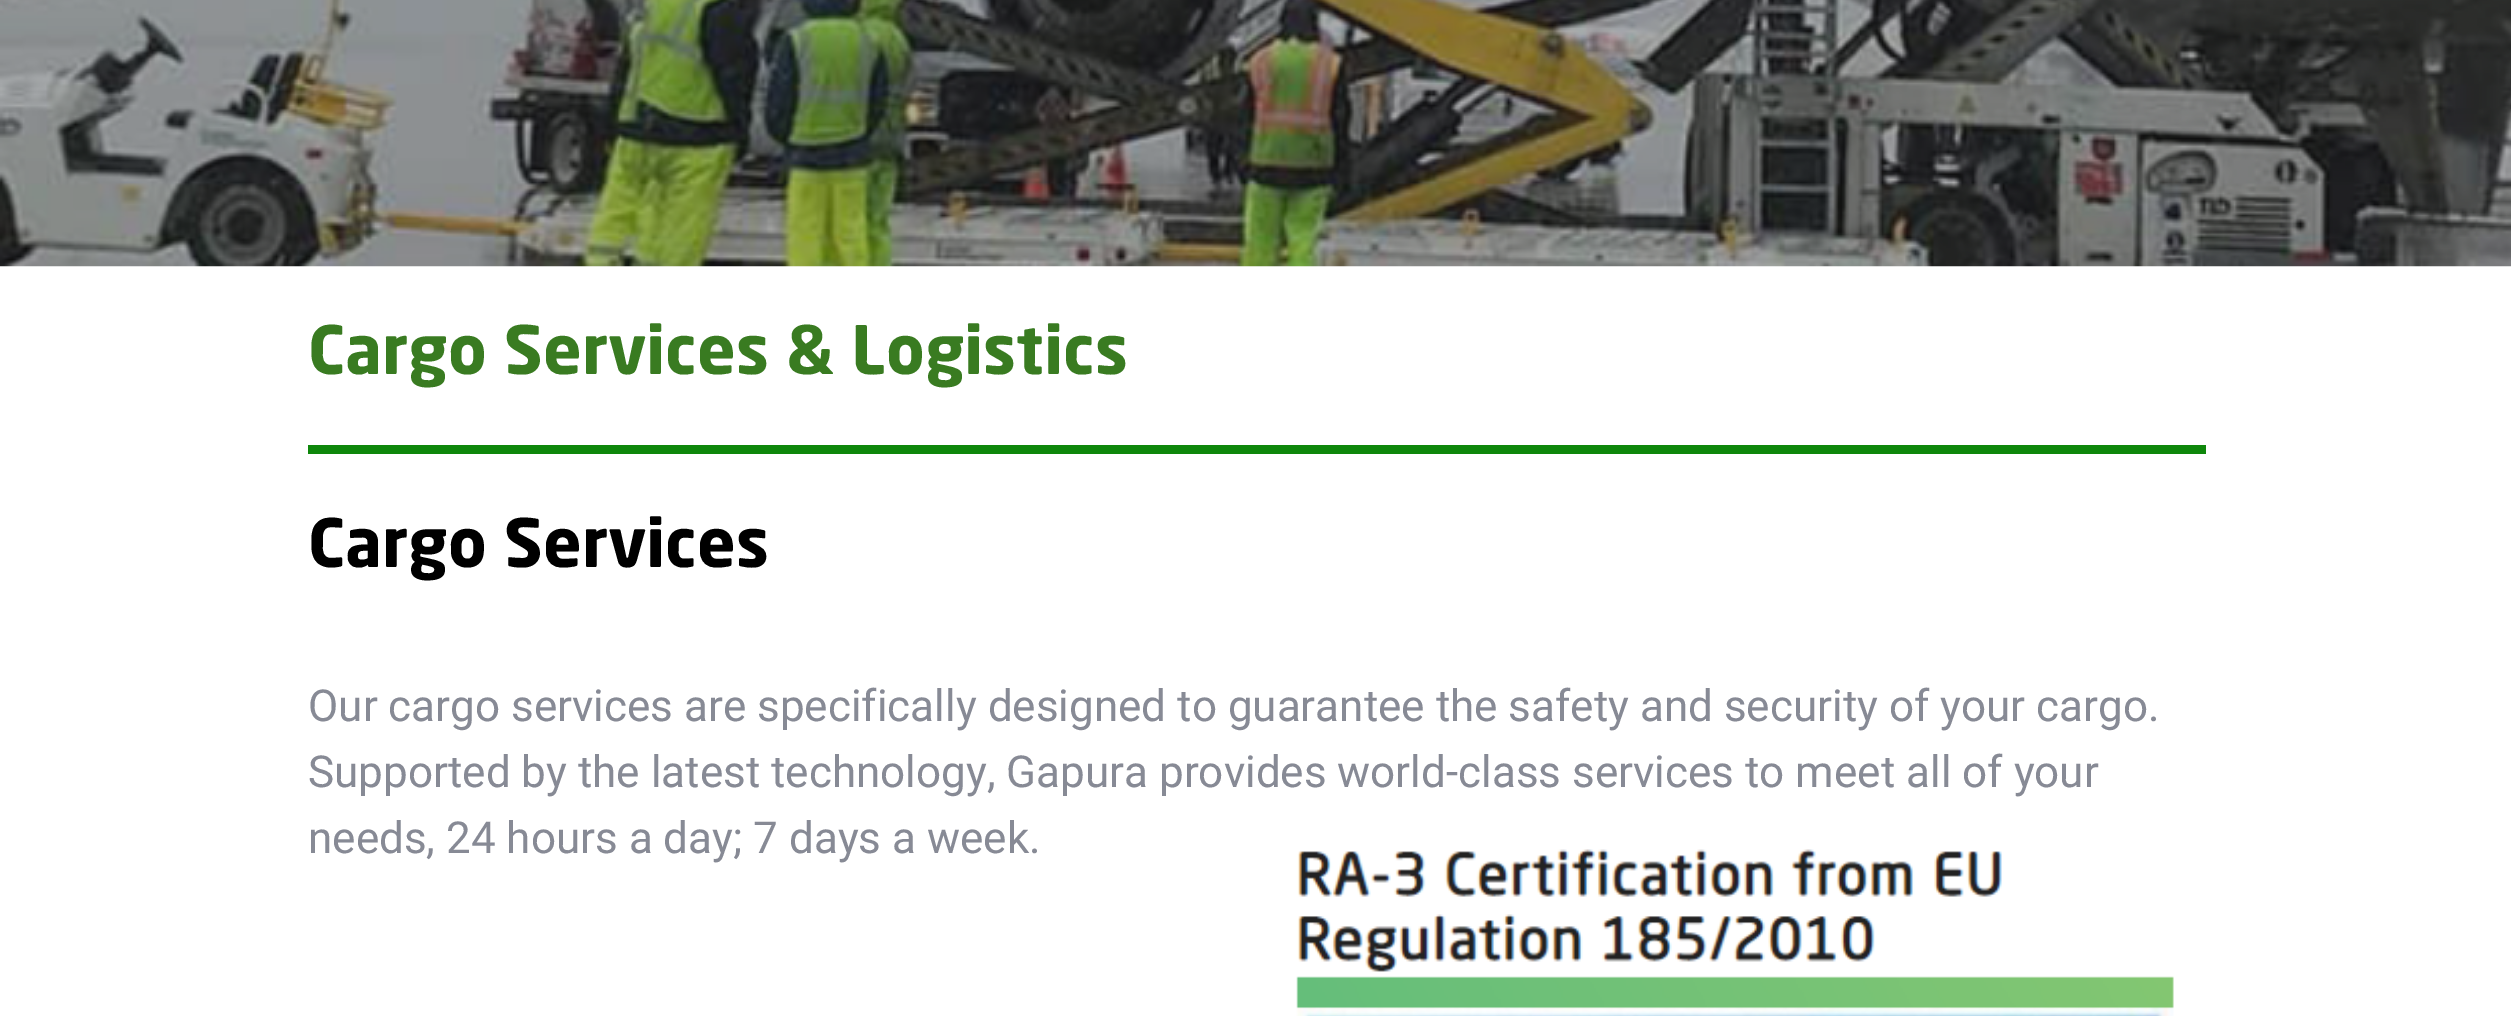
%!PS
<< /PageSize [2511 1016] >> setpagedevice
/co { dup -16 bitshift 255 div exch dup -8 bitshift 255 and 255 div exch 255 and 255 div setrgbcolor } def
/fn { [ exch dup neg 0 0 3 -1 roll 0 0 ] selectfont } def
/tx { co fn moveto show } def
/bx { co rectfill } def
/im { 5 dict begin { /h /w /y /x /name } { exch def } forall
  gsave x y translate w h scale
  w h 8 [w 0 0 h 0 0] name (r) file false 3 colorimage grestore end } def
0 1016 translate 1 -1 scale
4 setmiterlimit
0 0 2511 1016 16#FFFFFF bx
(media/1.raw) 0 0 2511 267 im
308 445 1898 9 16#0E870B bx
(media/2.raw) 1296 849 878 167 im
(Cargo Services & Logistics) 308 374 /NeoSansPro-Bold 66 16#397B21 tx
(Cargo Services) 308 567 /NeoSansPro-Bold 66 16#000000 tx
(Our cargo services are specifically designed to guarantee the safety and security of your cargo.) 308 721 /Roboto-Regular 44 16#878A95 tx
(Supported by the latest technology, Gapura provides world-class services to meet all of your) 308 787 /Roboto-Regular 44 16#878A95 tx
(needs, 24 hours a day; 7 days a week.) 308 853 /Roboto-Regular 44 16#878A95 tx
showpage
